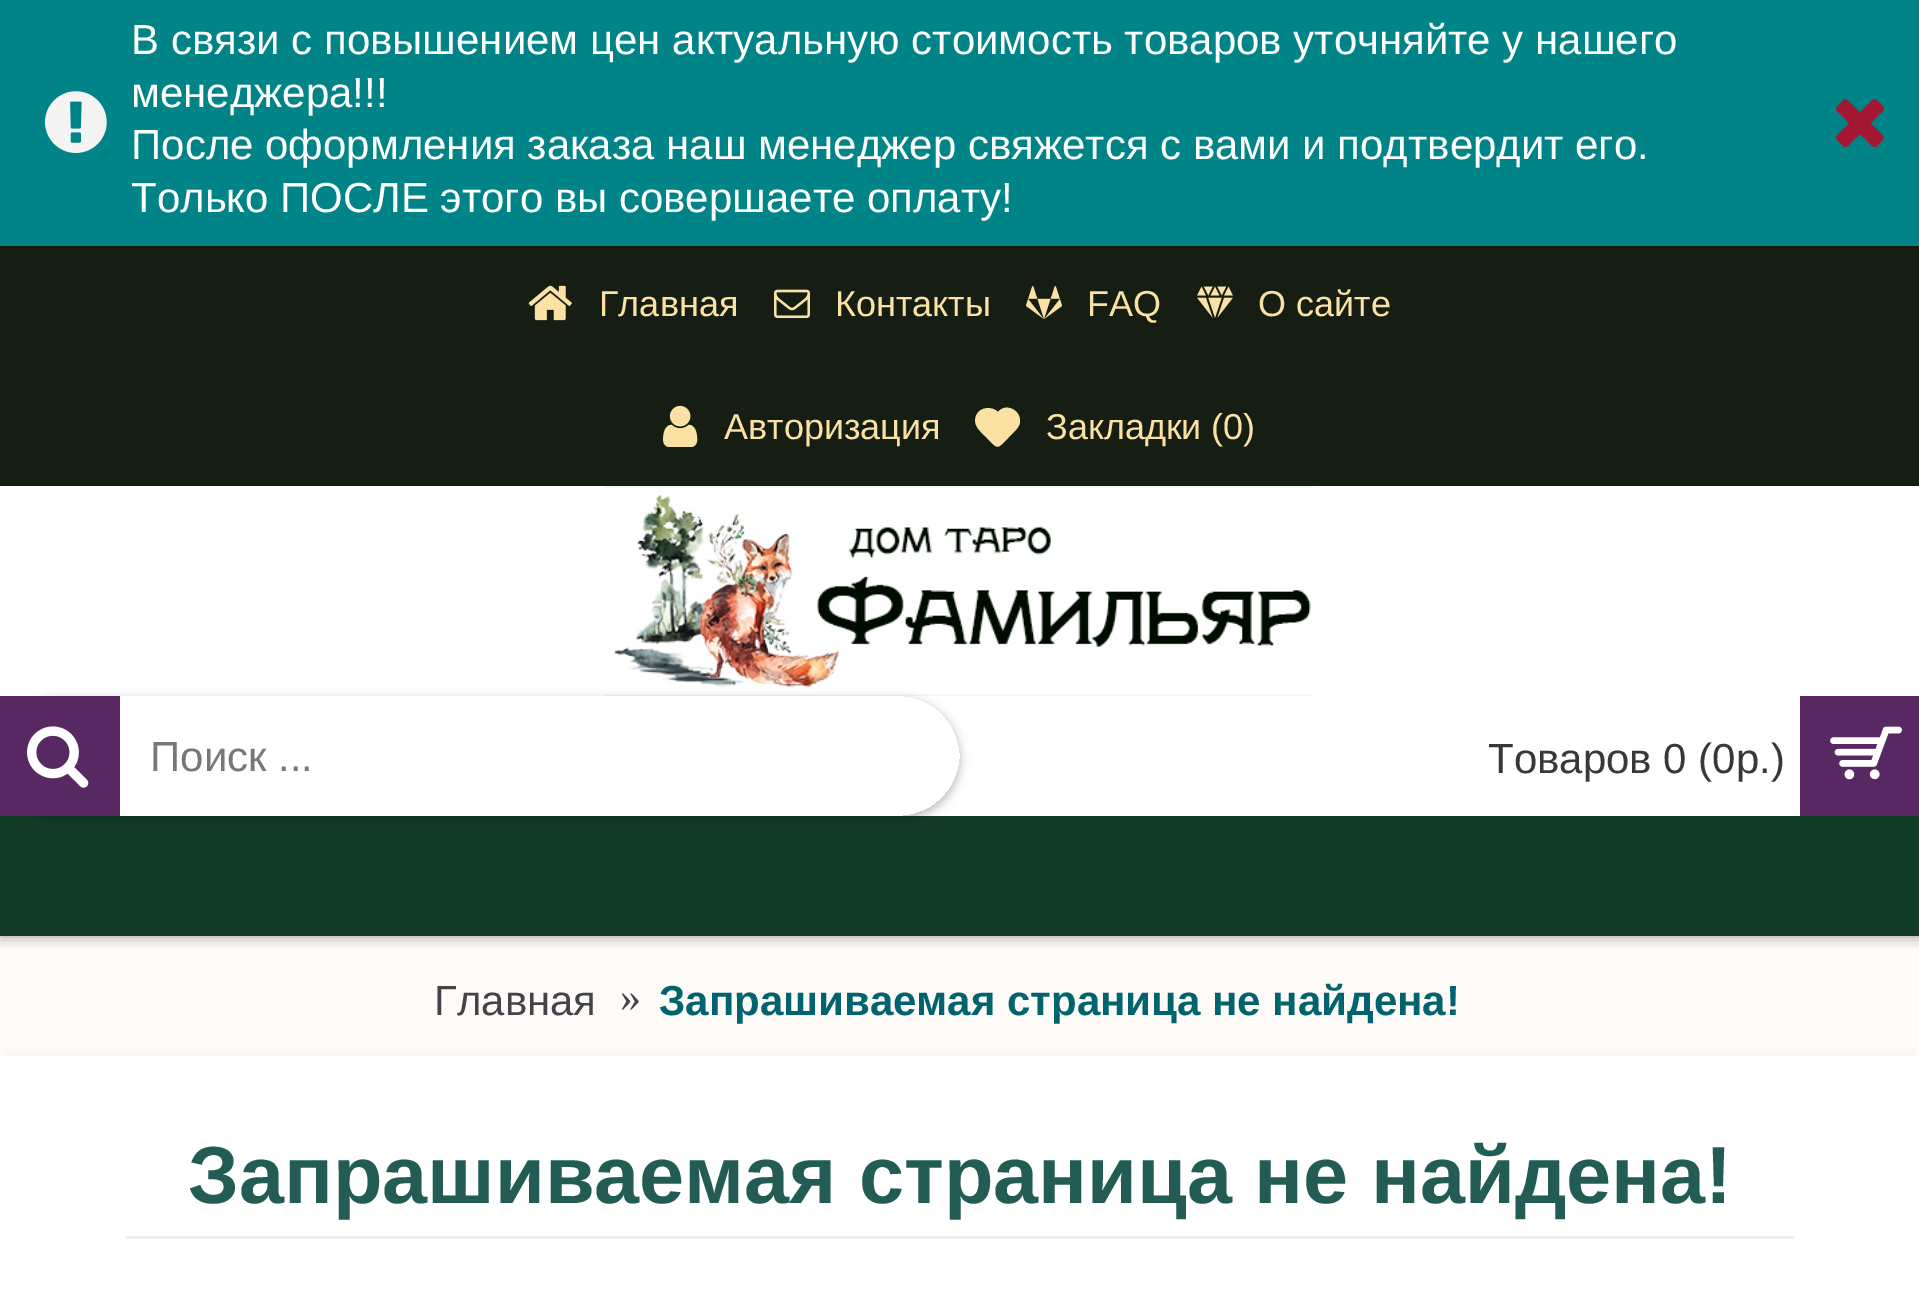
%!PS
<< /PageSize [1919 1293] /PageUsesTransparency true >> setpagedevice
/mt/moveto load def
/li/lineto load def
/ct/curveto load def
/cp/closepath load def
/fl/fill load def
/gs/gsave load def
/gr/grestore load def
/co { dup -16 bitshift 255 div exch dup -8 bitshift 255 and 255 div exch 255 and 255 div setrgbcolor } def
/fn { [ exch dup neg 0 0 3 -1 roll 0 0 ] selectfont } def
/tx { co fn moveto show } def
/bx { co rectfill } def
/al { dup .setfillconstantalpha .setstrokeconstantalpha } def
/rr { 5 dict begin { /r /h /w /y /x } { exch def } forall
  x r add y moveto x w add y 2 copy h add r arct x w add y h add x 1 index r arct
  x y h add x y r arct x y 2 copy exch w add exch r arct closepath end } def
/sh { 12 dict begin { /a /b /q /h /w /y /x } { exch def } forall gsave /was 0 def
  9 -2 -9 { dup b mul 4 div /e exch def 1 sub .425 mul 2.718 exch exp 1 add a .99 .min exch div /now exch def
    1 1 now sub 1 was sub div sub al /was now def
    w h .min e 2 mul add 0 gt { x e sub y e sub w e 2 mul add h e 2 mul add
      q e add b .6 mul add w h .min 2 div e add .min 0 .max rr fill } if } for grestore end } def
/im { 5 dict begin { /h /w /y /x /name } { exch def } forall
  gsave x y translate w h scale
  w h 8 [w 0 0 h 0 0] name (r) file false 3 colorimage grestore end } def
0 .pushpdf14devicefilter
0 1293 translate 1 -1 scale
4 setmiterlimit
0 0 1919 1293 16#FFFFFF bx
0 936 1919 120 16#FDFAF8 bx
gs
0 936 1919 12 rectclip
16#000000 co
0 246 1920 690 0 7.5 .4 sh
gr
0 0 1919 246 16#008487 bx
(media/1.raw) 45 91 62 62 im
(media/2.raw) 1836 99 48 49 im
0 246 1919 240 16#161E13 bx
(media/3.raw) 528 285 44 36 im
(media/4.raw) 774 289 36 29 im
(media/5.raw) 1026 286 36 33 im
(media/6.raw) 1197 286 36 32 im
(media/7.raw) 663 405 35 42 im
16#FCE1A4 co
1020 421 mt 1020 428 1013 432 1009 437 ct 996 450 999 450 986 437 ct 980 431 971 424 977 414 ct 981 407 992 406 998 412 ct 1005 403 1020 409 1020 421 ct cp fl
(media/8.raw) 604 486 709 210 im
0 816 1919 120 16#113B27 bx
gs
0 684 mt 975 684 li 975 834 li 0 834 li cp 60 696 mt 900 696 li 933 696 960 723 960 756 ct 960 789 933 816 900 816 ct 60 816 li 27 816 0 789 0 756 ct 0 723 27 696 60 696 ct cp eoclip newpath
16#000000 co
0 699 960 120 60 4.5 .25 sh
gr
0 696 120 120 16#582862 bx
(media/9.raw) 27 726 62 62 im
1800 696 119 120 16#582862 bx
(media/10.raw) 1830 726 72 54 im
6 1050 1911 6 16#FDF6F2 bx
126 1236 1668 3 16#EEEEEE bx
(В связи с повышением цен актуальную стоимость товаров уточняйте у нашего) 131 54 /LiberationSans-Regular 42 16#FFFFFF tx
(менеджера!!!) 131 107 /LiberationSans-Regular 42 16#FFFFFF tx
(После оформления заказа наш менеджер свяжется с вами и подтвердит его.) 131 159 /LiberationSans-Regular 42 16#FFFFFF tx
(Только ПОСЛЕ этого вы совершаете оплату!) 131 212 /LiberationSans-Regular 42 16#FFFFFF tx
(Главная) 599 316 /LiberationSans-Regular 36 16#FCE1A4 tx
(Контакты) 835 316 /LiberationSans-Regular 36 16#FCE1A4 tx
(FAQ) 1087 316 /LiberationSans-Regular 36 16#FCE1A4 tx
(О сайте) 1258 316 /LiberationSans-Regular 36 16#FCE1A4 tx
(Авторизация) 724 439 /LiberationSans-Regular 36 16#FCE1A4 tx
(Закладки \(0\)) 1046 439 /LiberationSans-Regular 36 16#FCE1A4 tx
(Поиск ...) 150 771 /LiberationSans-Regular 42 16#777777 tx
(Товаров 0 \(0р.\)) 1488 773 /LiberationSans-Regular 42 16#383838 tx
(Главная) 434 1015 /LiberationSans-Regular 42 16#444349 tx
(») 620 1011 /LiberationSerif-Regular 42 16#444349 tx
(Запрашиваемая страница не найдена!) 659 1015 /LiberationSans-Bold 42 16#01636E tx
(Запрашиваемая страница не найдена!) 188 1203 /LiberationSans-Bold 81 16#225C54 tx
.poppdf14devicefilter showpage
